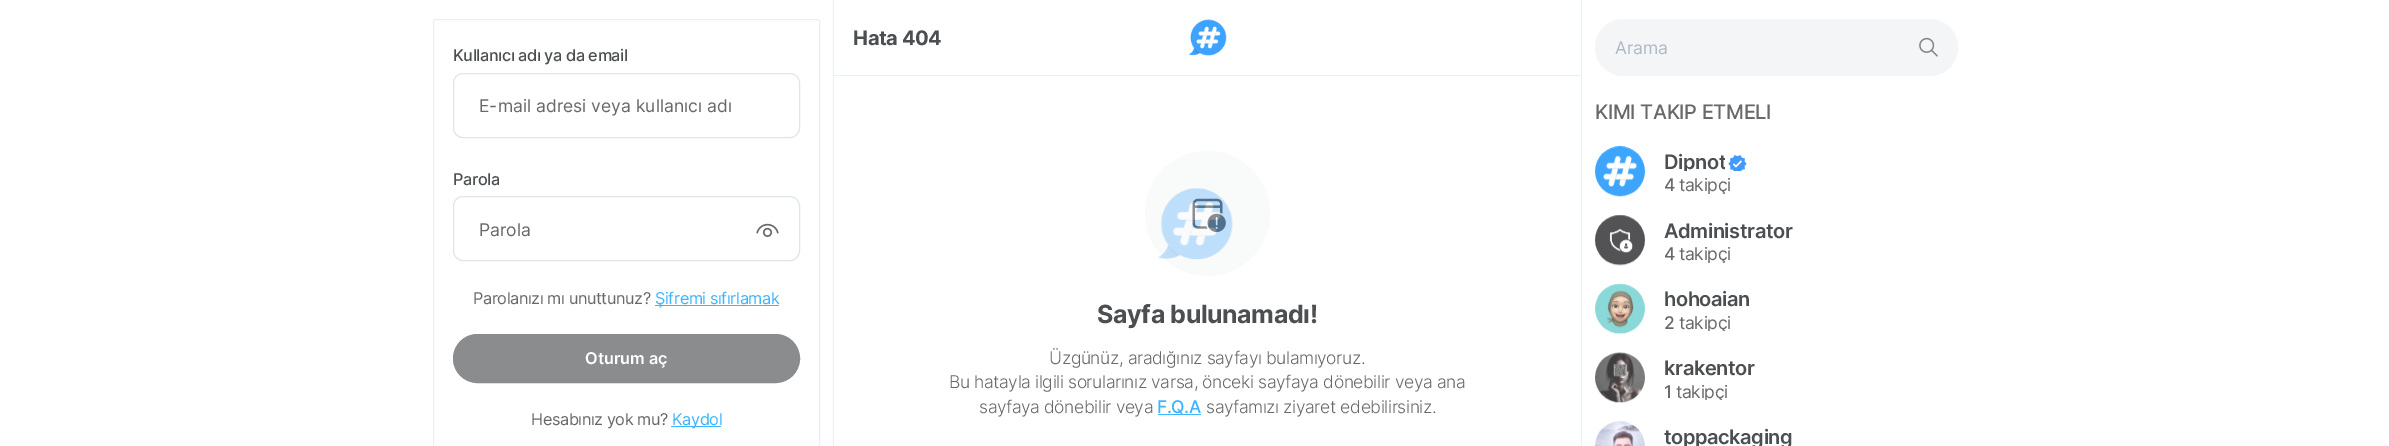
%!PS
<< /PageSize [2389 446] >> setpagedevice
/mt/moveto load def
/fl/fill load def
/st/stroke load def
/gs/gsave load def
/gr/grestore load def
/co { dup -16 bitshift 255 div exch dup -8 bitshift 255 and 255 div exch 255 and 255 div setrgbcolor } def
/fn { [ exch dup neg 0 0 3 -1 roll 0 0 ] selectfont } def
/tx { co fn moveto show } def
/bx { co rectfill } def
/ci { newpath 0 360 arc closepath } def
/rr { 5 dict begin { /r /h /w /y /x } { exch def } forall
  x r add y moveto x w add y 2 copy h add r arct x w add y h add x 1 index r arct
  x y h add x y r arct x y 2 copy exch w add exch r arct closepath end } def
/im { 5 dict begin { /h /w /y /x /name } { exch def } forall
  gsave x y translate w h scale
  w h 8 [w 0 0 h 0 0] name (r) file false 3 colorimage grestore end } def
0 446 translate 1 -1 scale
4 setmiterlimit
0 0 2389 446 16#FFFFFF bx
16#EAEFF3 co
433.5 19.5 386 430 2 rr st
16#DEE6EC co
453.5 73.5 346 64 9.5 rr st
453.5 196.5 346 64 9.5 rr st
(media/1.raw) 756 223 23 14 im
655 305 124 1 16#3DB5FF bx
16#8B8C8E co
453.5 334.5 346 48 24 rr gs fl gr
st
671 426 50 1 16#3DB5FF bx
1581 0 1 446 16#EAEFF3 bx
833 0 1 446 16#EAEFF3 bx
834 75 747 1 16#EAEFF3 bx
(media/2.raw) 1188 19 39 37 im
16#F9FAFA co
1207.5 213.5 62.5 ci fl
(media/3.raw) 1192 198 34 35 im
1158 414 43 1 16#3DB5FF bx
16#F4F5F7 co
1595 19 363 57 28.5 rr fl
(media/4.raw) 1919 37 19 20 im
(media/5.raw) 1595 146 50 51 im
(media/6.raw) 1728 155 19 16 im
(media/7.raw) 1595 214 50 52 im
(media/8.raw) 1595 283 50 52 im
(media/9.raw) 1595 352 50 51 im
(media/10.raw) 1595 421 50 25 im
(media/11.raw) 1158 188 75 72 im
/Inter-Medium 16.25 fn
16#4C4F51 co
453 61 mt -.4 0 (Kullanıcı adı ya da email) ashow
(E-mail adresi veya kullanıcı adı) 479 112 /Inter-Regular 17.5 16#696969 tx
/Inter-Medium 16.25 fn
16#4C4F51 co
453 185 mt -.4 0 (Parola) ashow
(Parola) 479 236 /Inter-Regular 17.5 16#696969 tx
/Inter-Regular 16.25 fn
473 304 mt -.4 0 (Parolanızı mı unuttunuz?) ashow
16#3DB5FF co
655 304 mt -.4 0 (Şifremi sıfırlamak) ashow
(Oturum aç) 585 364 /Inter-SemiBold 16.25 16#FFFFFF tx
/Inter-Regular 16.25 fn
16#696969 co
531 425 mt -.4 0 (Hesabınız yok mu?) ashow
16#3DB5FF co
672 425 mt -.4 0 (Kaydol) ashow
/Inter-Bold 20 fn
16#4C4F51 co
853 45 mt -.4 0 (Hata 404) ashow
/Inter-Bold 25 fn
1097 323 mt -.4 0 (Sayfa bulunamadı!) ashow
/Inter-Light 17.5 fn
16#696969 co
1049 364 mt -.4 0 (Üzgünüz, aradığınız sayfayı bulamıyoruz.) ashow
949 388 mt -.4 0 (Bu hatayla ilgili sorularınız varsa, önceki sayfaya dönebilir veya ana) ashow
979 413 mt -.4 0 (sayfaya dönebilir veya) ashow
/Inter-Medium 17.5 fn
16#3DB5FF co
1157 413 mt -.4 0 (F.Q.A) ashow
/Inter-Light 17.5 fn
16#696969 co
1206 413 mt -.4 0 (sayfamızı ziyaret edebilirsiniz.) ashow
(Arama) 1615 54 /Inter-Regular 17.5 16#B0BAC4 tx
/Inter-Medium 20 fn
16#696969 co
1595 119 mt -.4 0 (KIMI TAKIP ETMELI) ashow
gs
1664 151 61 20 rectclip
/Inter-SemiBold 20 fn
16#4C4F51 co
1664 169 mt -.4 0 (Dipnot) ashow
gr
/Inter-Medium 17.5 fn
1664 191 mt -.4 0 (4) ashow
gs
1664 176 294 18 rectclip
/Inter-Regular 17.5 fn
1679 191 mt -.4 0 (takipçi) ashow
gr
/Inter-SemiBold 20 fn
16#4C4F51 co
1664 238 mt -.4 0 (Administrator) ashow
/Inter-Medium 17.5 fn
16#696969 co
1664 260 mt -.4 0 (4) ashow
gs
1664 245 294 18 rectclip
/Inter-Regular 17.5 fn
1679 260 mt -.4 0 (takipçi) ashow
gr
/Inter-SemiBold 20 fn
16#4C4F51 co
1664 306 mt -.4 0 (hohoaian) ashow
/Inter-Medium 17.5 fn
16#696969 co
1664 329 mt -.4 0 (2) ashow
gs
1664 314 294 17 rectclip
/Inter-Regular 17.5 fn
1679 329 mt -.4 0 (takipçi) ashow
gr
/Inter-SemiBold 20 fn
16#4C4F51 co
1664 375 mt -.4 0 (krakentor) ashow
/Inter-Medium 17.5 fn
16#696969 co
1664 398 mt -.4 0 (1) ashow
gs
1664 383 294 17 rectclip
/Inter-Regular 17.5 fn
1676 398 mt -.4 0 (takipçi) ashow
gr
/Inter-SemiBold 20 fn
16#4C4F51 co
1664 444 mt -.4 0 (toppackaging) ashow
showpage
